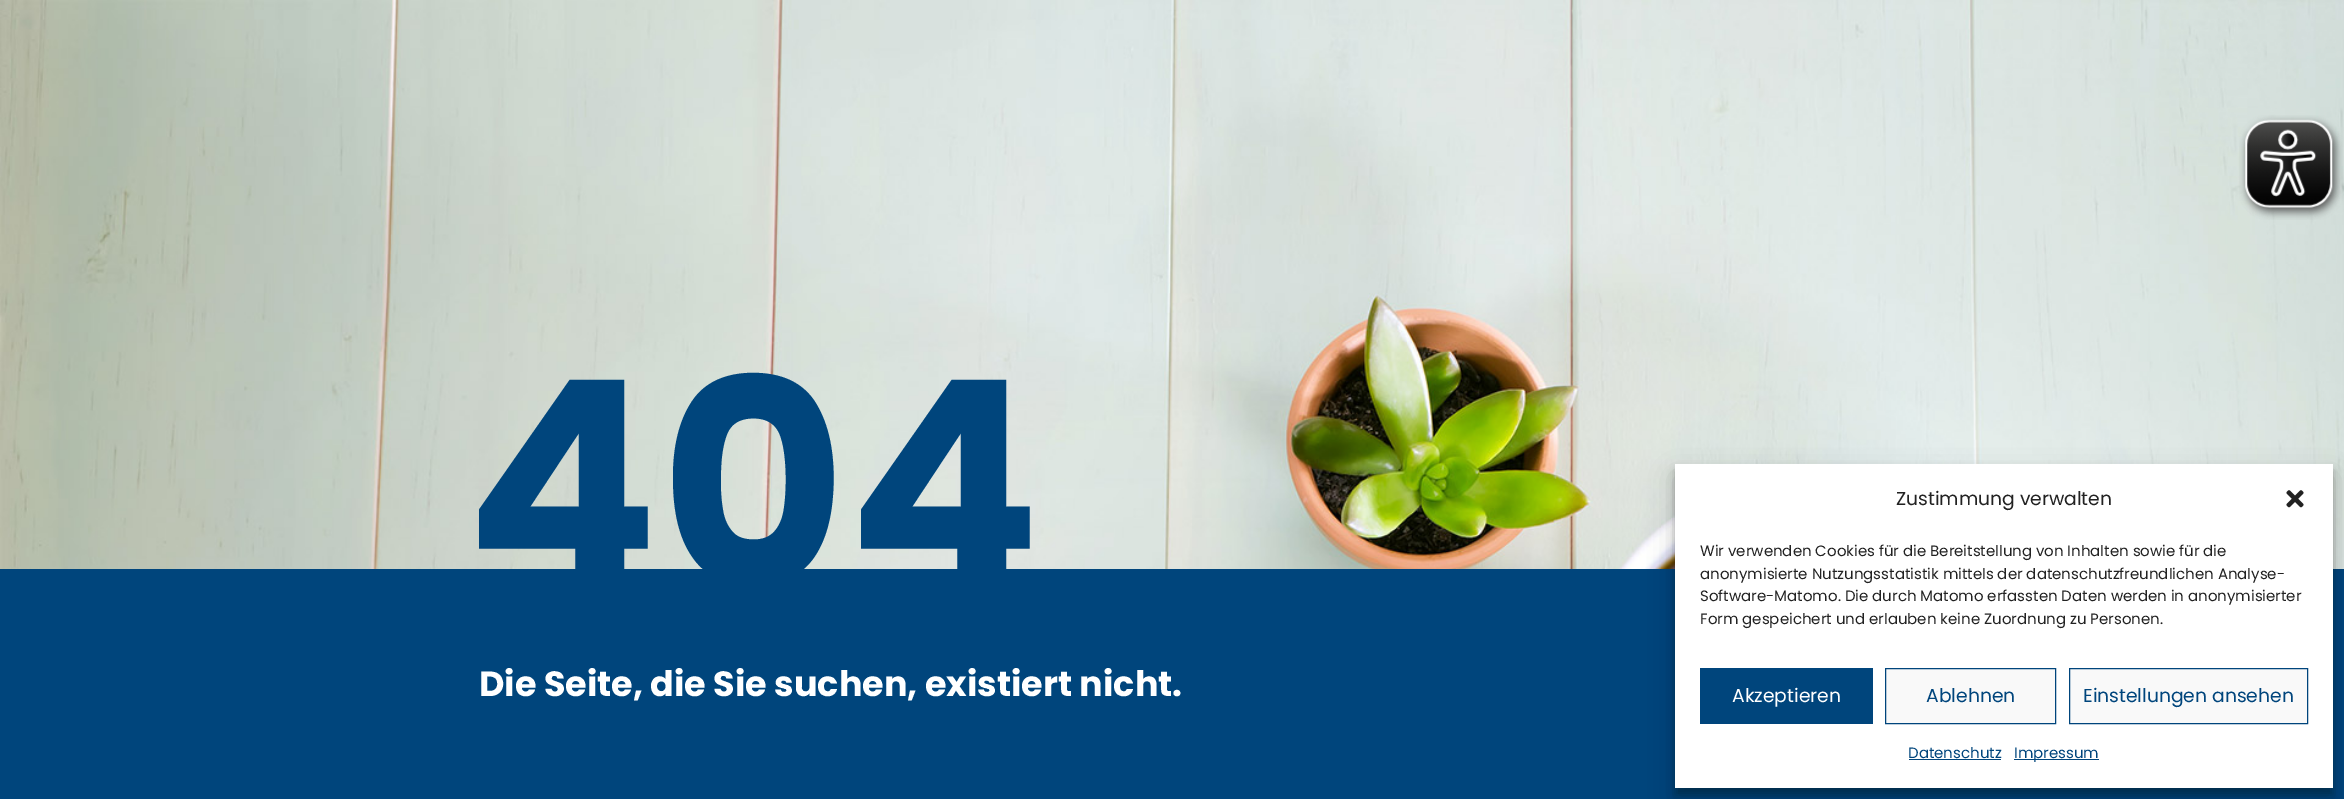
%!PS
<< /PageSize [2344 799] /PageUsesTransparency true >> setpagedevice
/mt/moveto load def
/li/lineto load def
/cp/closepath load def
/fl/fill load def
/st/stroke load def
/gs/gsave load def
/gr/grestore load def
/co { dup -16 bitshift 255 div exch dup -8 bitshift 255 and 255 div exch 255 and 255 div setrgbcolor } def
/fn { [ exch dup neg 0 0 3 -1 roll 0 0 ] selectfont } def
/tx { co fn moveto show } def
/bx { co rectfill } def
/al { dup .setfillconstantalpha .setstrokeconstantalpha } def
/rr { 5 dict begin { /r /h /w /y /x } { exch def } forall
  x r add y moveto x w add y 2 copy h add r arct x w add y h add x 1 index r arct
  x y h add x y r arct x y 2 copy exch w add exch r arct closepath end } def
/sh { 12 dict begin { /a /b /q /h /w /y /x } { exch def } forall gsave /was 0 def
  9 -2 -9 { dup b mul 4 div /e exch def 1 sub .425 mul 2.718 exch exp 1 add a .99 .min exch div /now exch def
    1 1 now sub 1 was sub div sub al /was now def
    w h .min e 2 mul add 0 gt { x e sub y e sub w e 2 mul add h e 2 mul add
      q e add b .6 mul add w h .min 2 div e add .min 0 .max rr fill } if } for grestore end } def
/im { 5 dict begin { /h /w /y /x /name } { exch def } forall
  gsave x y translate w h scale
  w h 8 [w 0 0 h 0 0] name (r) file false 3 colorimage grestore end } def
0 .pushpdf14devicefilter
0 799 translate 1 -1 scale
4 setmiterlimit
0 0 2344 799 16#FFFFFF bx
(media/1.raw) 0 0 2344 569 im
(media/2.raw) 2239 115 104 105 im
0 569 2344 230 16#00457C bx
16#000000 co
1675 471 658 324 0 4 .23 sh
1675 476 658 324 0 12.5 .19 sh
1675 464 658 324 16#FFFFFF bx
(media/3.raw) 2286 490 18 18 im
1700 668 173 56 16#00457C bx
16#F9F9F9 co
1885.5 668.5 mt 2055.5 668.5 li 2055.5 723.5 li 1885.5 723.5 li cp gs fl gr
16#00457C co
st
16#F9F9F9 co
2069.5 668.5 mt 2307.5 668.5 li 2307.5 723.5 li 2069.5 723.5 li cp gs fl gr
16#00457C co
st
1909 759 92 1 16#00457C bx
2014 759 85 1 16#00457C bx
(404) 465 586 /Poppins-Bold 287.5 16#00457C tx
(Die Seite, die Sie suchen, existiert nicht.) 479 696 /Poppins-Bold 35 16#FFFFFF tx
(Zustimmung verwalten) 1896 505 /Poppins-Regular 18.75 16#222222 tx
(Wir verwenden Cookies für die Bereitstellung von Inhalten sowie für die) 1700 556 /Poppins-Regular 15 16#222222 tx
(anonymisierte Nutzungsstatistik mittels der datenschutzfreundlichen Analyse-) 1700 579 /Poppins-Regular 15 16#222222 tx
(Software-Matomo. Die durch Matomo erfassten Daten werden in anonymisierter) 1700 601 /Poppins-Regular 15 16#222222 tx
(Form gespeichert und erlauben keine Zuordnung zu Personen.) 1700 624 /Poppins-Regular 15 16#222222 tx
(Akzeptieren) 1732 702 /Poppins-Regular 18.75 16#FFFFFF tx
(Ablehnen) 1926 702 /Poppins-Regular 18.75 16#00457C tx
(Einstellungen ansehen) 2083 702 /Poppins-Regular 18.75 16#00457C tx
(Datenschutz) 1908 758 /Poppins-Regular 15 16#00457C tx
(Impressum) 2014 758 /Poppins-Regular 15 16#00457C tx
.poppdf14devicefilter showpage
